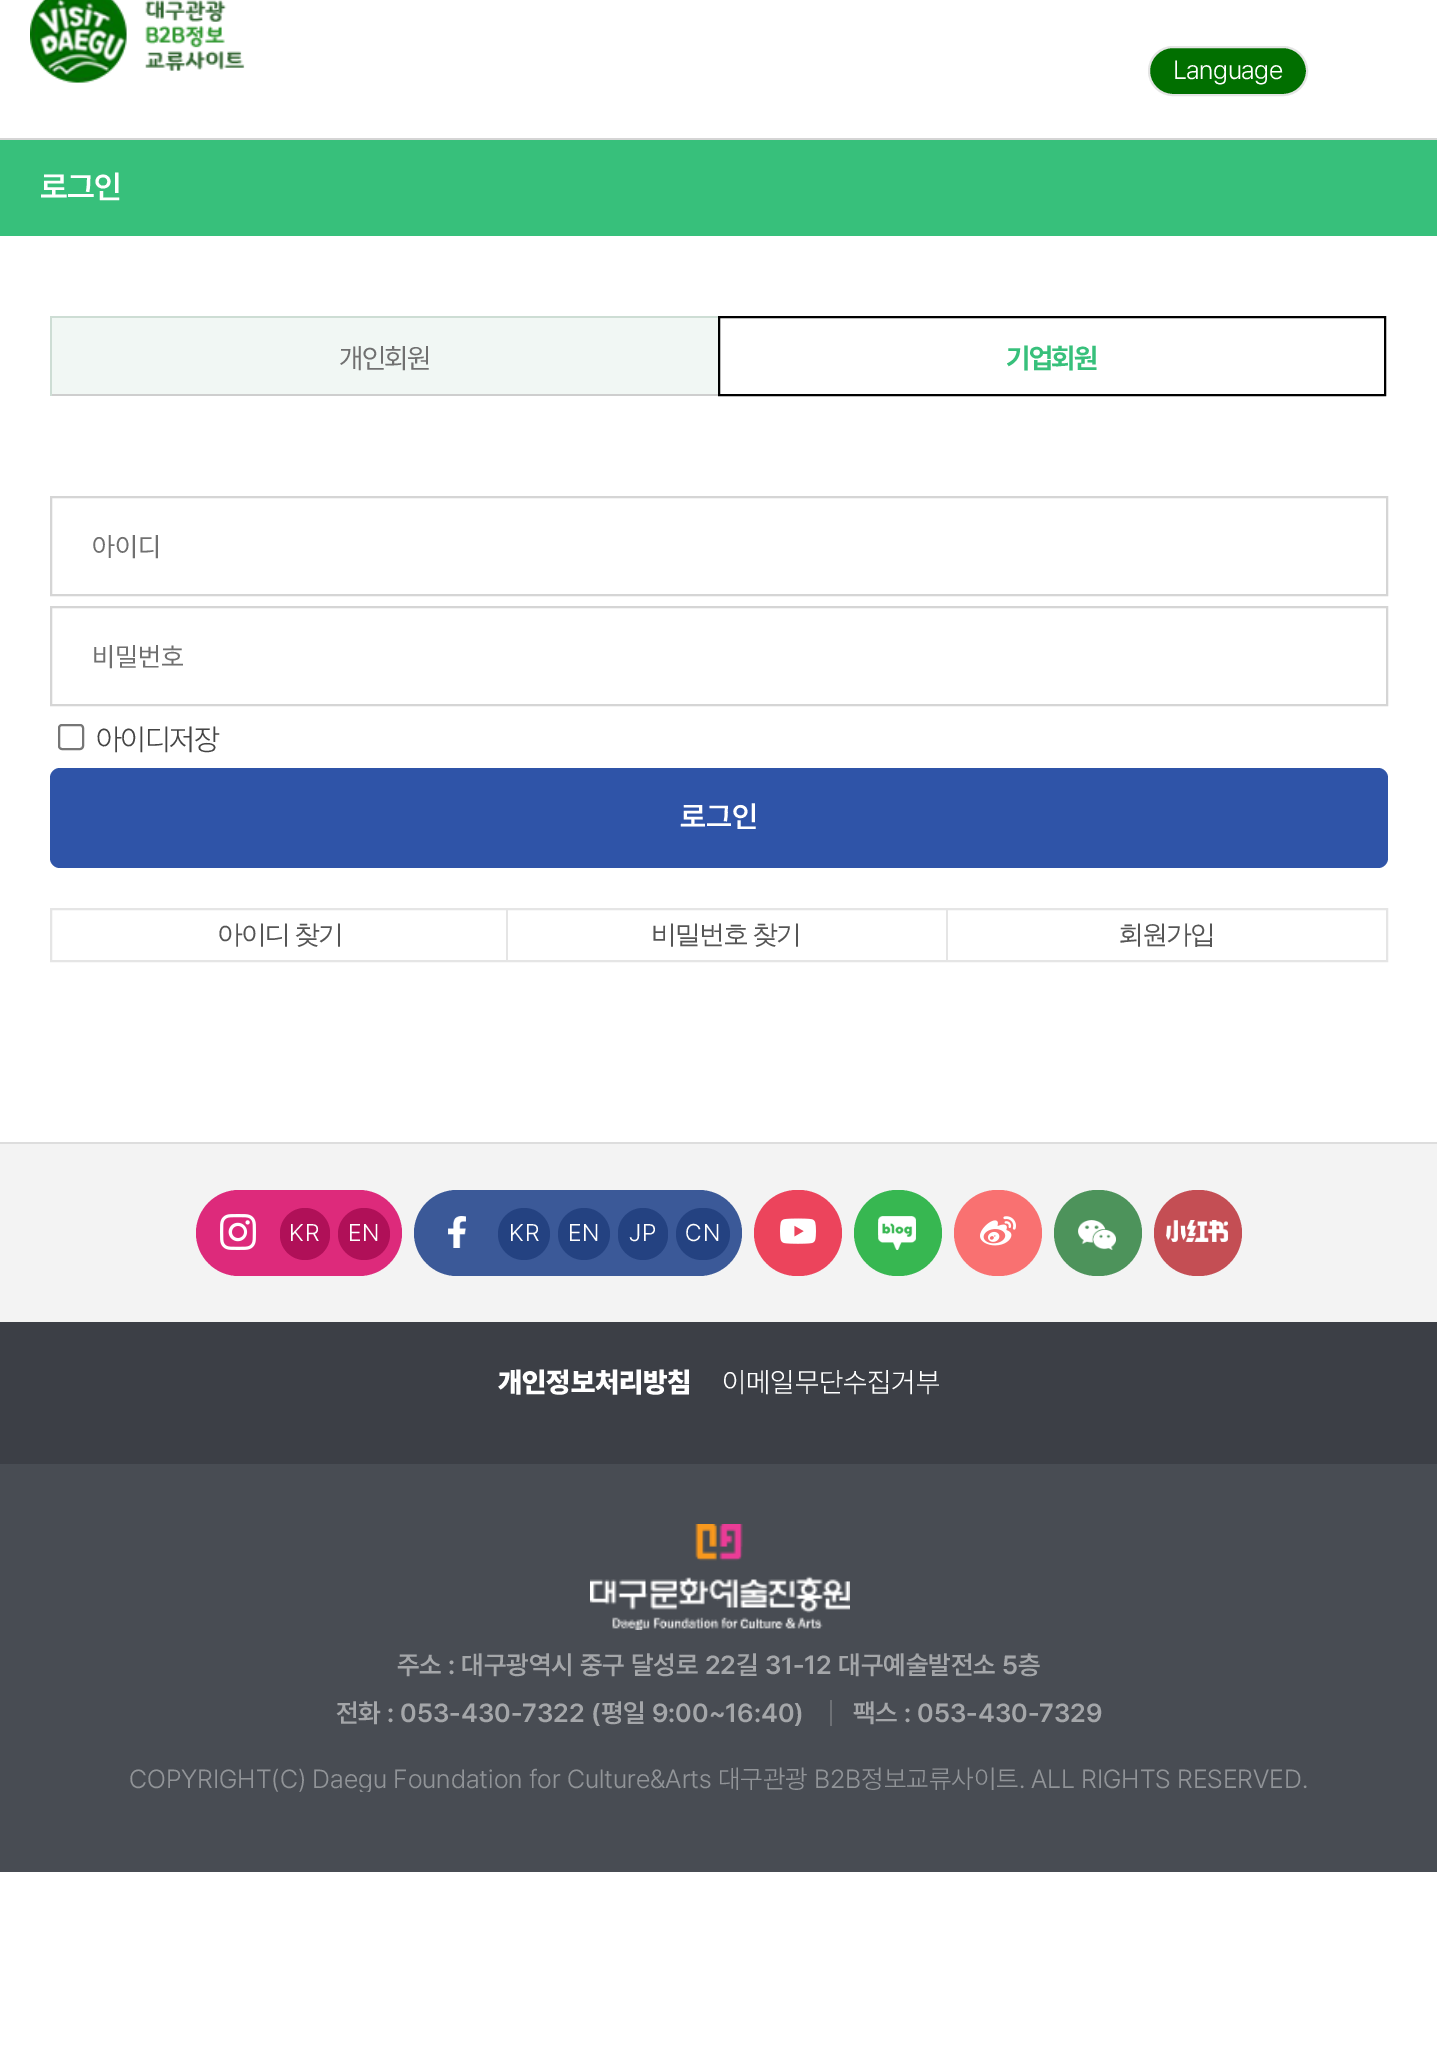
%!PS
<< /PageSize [1437 2072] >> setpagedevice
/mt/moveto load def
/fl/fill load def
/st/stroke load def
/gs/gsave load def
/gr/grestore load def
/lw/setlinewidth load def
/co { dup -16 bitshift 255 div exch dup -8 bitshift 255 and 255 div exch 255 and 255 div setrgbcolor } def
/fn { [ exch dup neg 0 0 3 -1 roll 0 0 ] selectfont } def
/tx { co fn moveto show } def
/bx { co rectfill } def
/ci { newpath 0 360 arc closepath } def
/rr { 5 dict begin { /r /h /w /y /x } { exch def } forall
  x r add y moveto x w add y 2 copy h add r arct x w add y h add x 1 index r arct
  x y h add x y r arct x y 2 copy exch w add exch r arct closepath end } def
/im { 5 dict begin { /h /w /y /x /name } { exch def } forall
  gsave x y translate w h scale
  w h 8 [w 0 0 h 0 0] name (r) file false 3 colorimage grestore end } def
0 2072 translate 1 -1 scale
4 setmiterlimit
0 0 1437 2072 16#FFFFFF bx
0 138 1437 2 16#D5D5D5 bx
(media/1.raw) 30 0 215 83 im
16#016F00 co
1149 47 158 48 24 rr gs fl gr
16#E5E5E5 co
2 lw
st
0 140 1437 96 16#37C07B bx
52 318 666 76 16#F1F7F4 bx
50 316 670 2 16#CDDDD4 bx
50 394 670 2 16#CECECE bx
50 316 2 80 16#CDDDD4 bx
16#000000 co
719 317 666 78 rectstroke
16#D5D5D5 co
51 497 1336 98 rectstroke
51 607 1336 98 rectstroke
16#767676 co
59 725 24 24 3 rr st
16#2F54A8 co
50 768 1338 100 10 rr fl
16#E5E5E5 co
51 909 1336 52 rectstroke
506 910 2 50 16#E5E5E5 bx
946 910 2 50 16#E5E5E5 bx
0 1144 1437 178 16#F3F3F3 bx
0 1142 1437 2 16#DDDDDD bx
16#DD2A7B co
196 1190 206 86 43 rr fl
(media/2.raw) 220 1214 36 36 im
16#B01058 co
280 1208 50 52 25 rr fl
364 1234 26 ci fl
16#3B5998 co
414 1190 328 86 43 rr fl
(media/3.raw) 448 1216 18 32 im
16#244281 co
524 1234 26 ci fl
584 1234 26 ci fl
618 1208 50 52 25 rr fl
676 1208 54 52 26 rr fl
16#EC445C co
754 1190 88 86 43 rr fl
(media/4.raw) 780 1218 36 26 im
16#37B751 co
854 1190 88 86 43 rr fl
(media/5.raw) 878 1216 38 34 im
16#F97171 co
954 1190 88 86 43 rr fl
(media/6.raw) 980 1216 36 30 im
16#4D935B co
1054 1190 88 86 43 rr fl
(media/7.raw) 1078 1220 38 30 im
16#C44E54 co
1154 1190 88 86 43 rr fl
(media/8.raw) 1166 1220 62 22 im
0 1464 1437 408 16#484C53 bx
0 1322 1437 142 16#3C3F46 bx
(media/9.raw) 590 1524 260 106 im
830 1700 2 26 16#6D7075 bx
/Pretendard-Light 26 fn
16#FFFFFF co
1173 79 mt -.5 0 (Language) ashow
/Pretendard-SemiBold 32 fn
40 198 mt -.5 0 (로그인) ashow
/Pretendard-Regular 28 fn
16#707070 co
339 368 mt -1.5 0 (개인회원) ashow
/Pretendard-Bold 28 fn
16#37C07B co
1006 368 mt -1.5 0 (기업회원) ashow
(아이디) 92 556 /Pretendard-Regular 26.5 16#707070 tx
(비밀번호) 92 666 /Pretendard-Regular 26.5 16#707070 tx
/Pretendard-Light 30 fn
16#444444 co
96 750 mt -1.5 0 (아이디저장) ashow
(로그인) 680 827 /Pretendard-SemiBold 30 16#FFFFFF tx
/WenQuanYiZenHei-Medium 26 fn
16#555555 co
217 943 mt -1 0 32 -2 0 (아이디 찾기) awidthshow
651 943 mt -1 0 32 -2 0 (비밀번호 찾기) awidthshow
1118 943 mt -2 0 (회원가입) ashow
/Pretendard-Light 24 fn
16#FFFFFF co
289 1241 mt 1 0 (KR) ashow
348 1241 mt 1 0 (EN) ashow
509 1241 mt 1 0 (KR) ashow
568 1241 mt 1 0 (EN) ashow
629 1241 mt 1 0 (JP) ashow
685 1241 mt 1 0 (CN) ashow
(개인정보처리방침) 498 1392 /Pretendard-Black 28 16#FFFFFF tx
(이메일무단수집거부) 722 1392 /Pretendard-Light 28 16#FFFFFF tx
(주소 : 대구광역시 중구 달성로 22길 31-12 대구예술발전소 5층) 397 1674 /Pretendard-SemiBold 26 16#A4A6A9 tx
(전화 : 053-430-7322 \(평일 9:00~16:40\)) 336 1722 /Pretendard-SemiBold 26 16#A4A6A9 tx
(팩스 : 053-430-7329) 853 1722 /Pretendard-SemiBold 26 16#A4A6A9 tx
gs
0 1766 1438 26 rectclip
(COPYRIGHT\(C\) Daegu Foundation for Culture&Arts 대구관광 B2B정보교류사이트. ALL RIGHTS RESERVED.) 129 1788 /Pretendard-Light 26 16#919498 tx
gr
showpage
